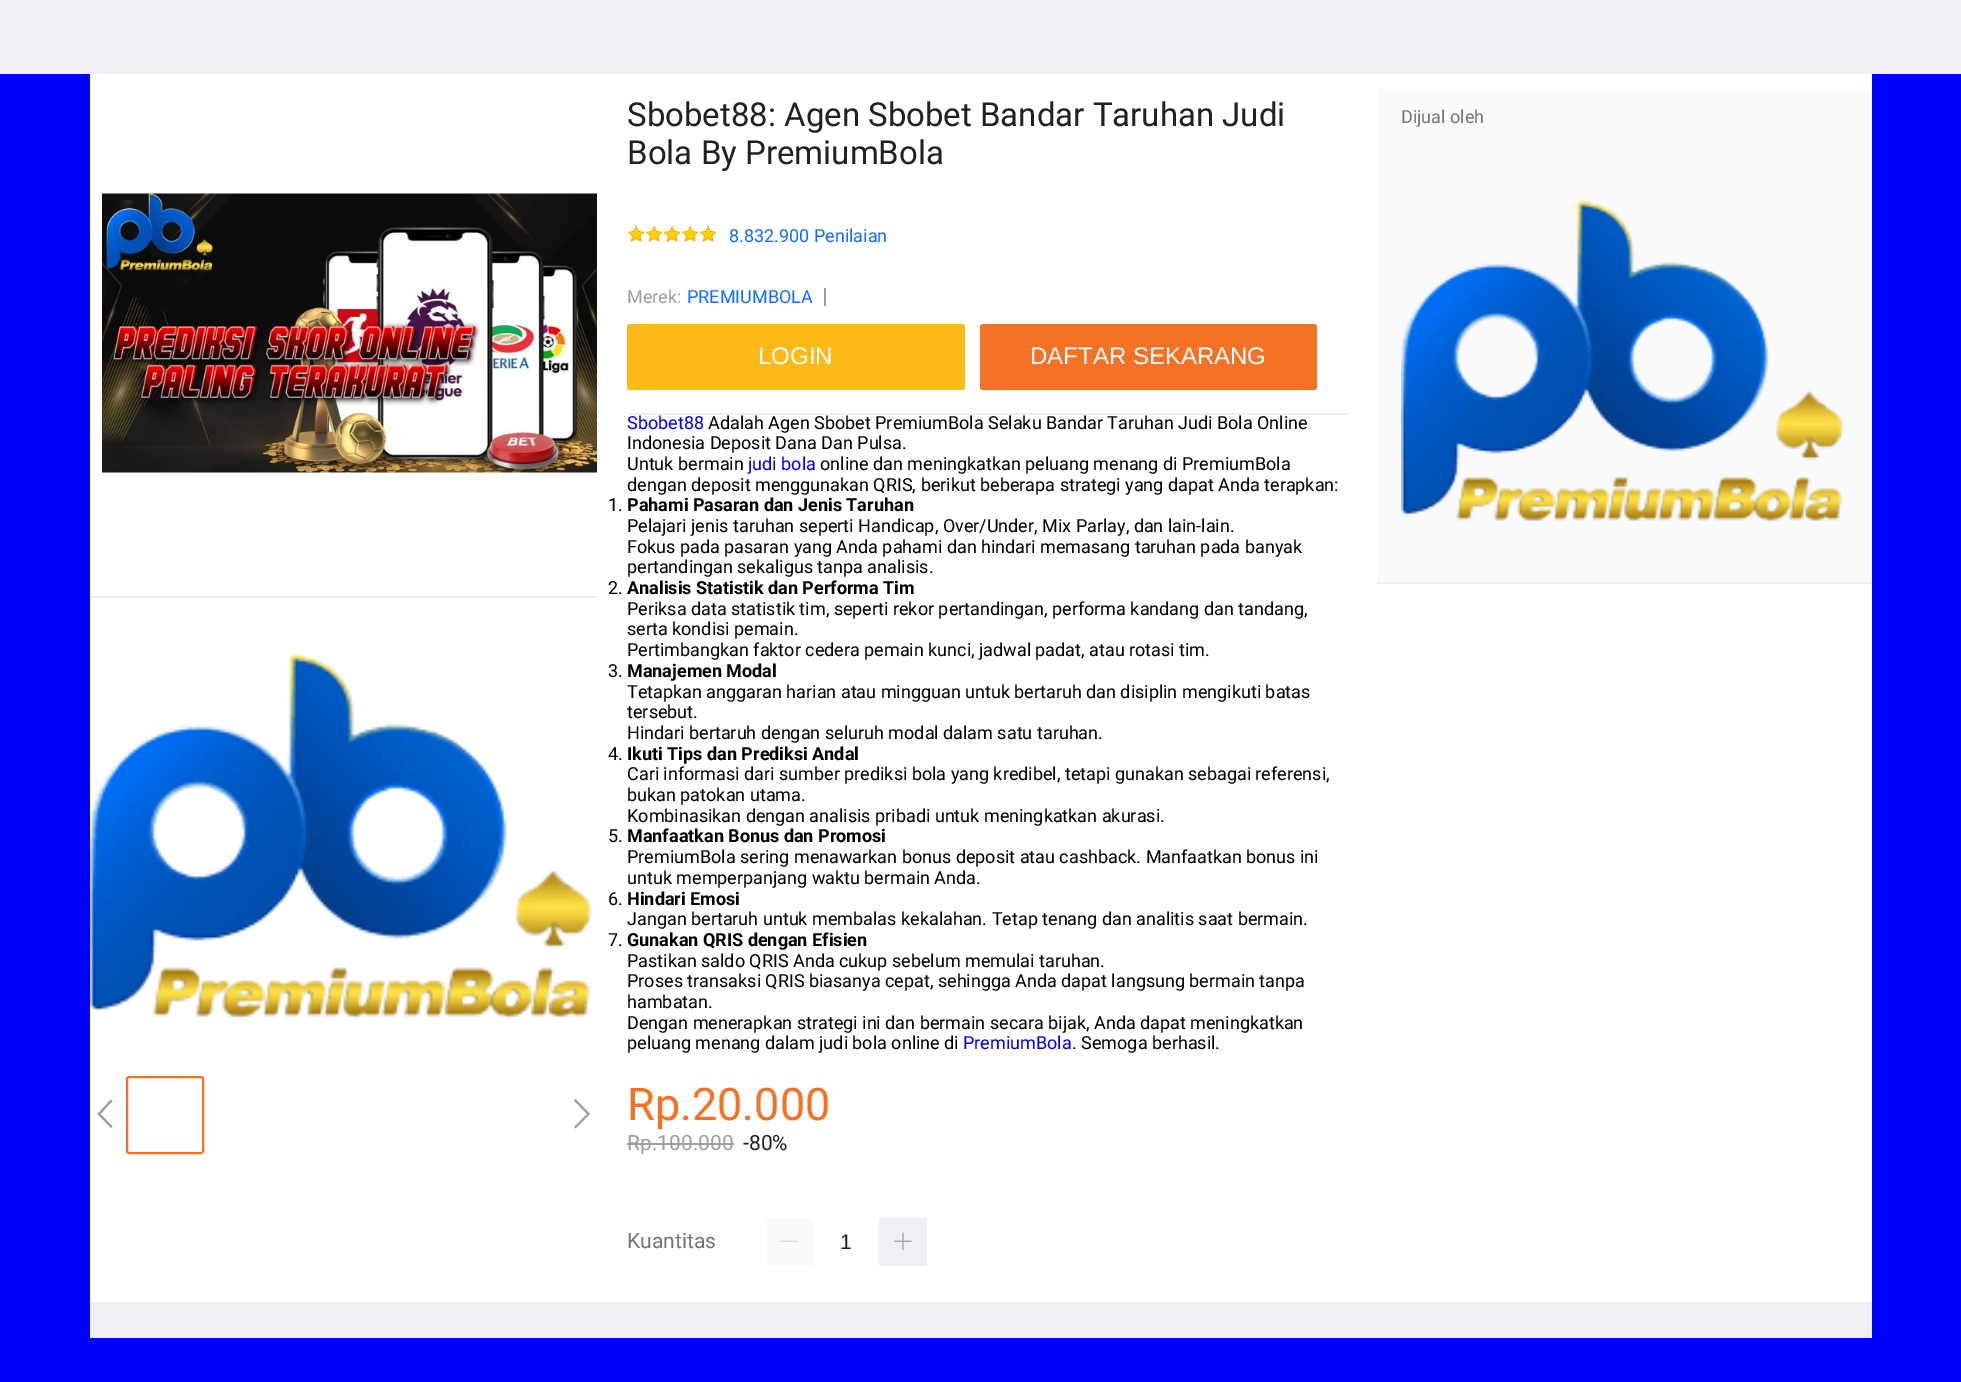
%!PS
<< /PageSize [1961 1382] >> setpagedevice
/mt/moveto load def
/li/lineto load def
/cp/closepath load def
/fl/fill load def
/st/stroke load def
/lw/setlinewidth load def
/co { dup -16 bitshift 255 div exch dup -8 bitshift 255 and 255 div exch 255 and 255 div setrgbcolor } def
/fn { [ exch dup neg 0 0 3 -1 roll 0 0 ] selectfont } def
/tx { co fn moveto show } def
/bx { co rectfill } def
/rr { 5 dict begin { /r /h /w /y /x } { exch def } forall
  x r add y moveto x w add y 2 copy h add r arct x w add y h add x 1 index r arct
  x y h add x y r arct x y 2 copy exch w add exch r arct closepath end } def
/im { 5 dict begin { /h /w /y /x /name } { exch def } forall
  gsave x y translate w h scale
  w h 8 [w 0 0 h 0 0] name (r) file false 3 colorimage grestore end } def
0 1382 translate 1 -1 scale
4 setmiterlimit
0 0 1961 1382 16#0000FF bx
0 0 1961 74 16#EFF0F5 bx
90 1302 1782 36 16#EFF0F5 bx
90 74 1782 1228 16#FFFFFF bx
90 596 507 2 16#EFF0F5 bx
(media/1.raw) 102 193 495 280 im
(media/2.raw) 90 653 503 366 im
16#9E9E9E co
112.5 1126.5 mt 100.5 1114 li 112.5 1101 li 111 1099.5 li 97.5 1114 li 111 1128 li cp fl
16#F57224 co
2 lw
127 1077 76 76 2 rr st
16#9E9E9E co
575.5 1128.5 mt 574 1127 li 587 1114 li 574 1100.5 li 575.5 1099 li 590 1114 li cp fl
(media/3.raw) 627 225 18 17 im
(media/3.raw) 645 225 18 17 im
(media/4.raw) 663 225 18 17 im
(media/4.raw) 681 225 18 17 im
(media/4.raw) 699 225 18 17 im
627 413 720 2 16#EFF0F5 bx
824 288 2 18 16#9E9E9E bx
16#FFB916 co
627 324 338 66 3 rr fl
16#F57224 co
980 324 337 66 3 rr fl
627 1143 107 2 16#9E9E9E bx
765 1218 48 48 16#FAFAFA bx
(media/5.raw) 780 1240 18 2 im
879 1218 48 48 16#EFF0F5 bx
(media/6.raw) 894 1232 18 18 im
1377 89 495 493 16#FAFAFA bx
(media/7.raw) 1401 199 443 323 im
1377 582 495 2 16#EFF0F5 bx
(Sbobet88: Agen Sbobet Bandar Taruhan Judi) 627 126 /Roboto-Regular 33 16#212121 tx
(Bola By PremiumBola) 627 164 /Roboto-Regular 33 16#212121 tx
(8.832.900 Penilaian) 729 242 /Roboto-Regular 18 16#136CFF tx
(Merek:) 627 303 /Roboto-Regular 18 16#9E9E9E tx
(PREMIUMBOLA) 687 303 /Roboto-Regular 18 16#136CFF tx
(LOGIN) 758 364 /LiberationSans-Regular 24 16#FFFFFF tx
(DAFTAR SEKARANG) 1030 364 /LiberationSans-Regular 24 16#FFFFFF tx
(Sbobet88) 627 429 /Roboto-Regular 18 16#0000EE tx
(Adalah Agen Sbobet PremiumBola Selaku Bandar Taruhan Judi Bola Online) 708 429 /Roboto-Regular 18 16#000000 tx
(Indonesia Deposit Dana Dan Pulsa.) 627 449 /Roboto-Regular 18 16#000000 tx
(Untuk bermain) 627 470 /Roboto-Regular 18 16#000000 tx
(judi bola) 748 470 /Roboto-Regular 18 16#0000EE tx
(online dan meningkatkan peluang menang di PremiumBola) 820 470 /Roboto-Regular 18 16#000000 tx
(dengan deposit menggunakan QRIS, berikut beberapa strategi yang dapat Anda terapkan:) 627 491 /Roboto-Regular 18 16#000000 tx
(1.) 608 511 /Roboto-Regular 18 16#000000 tx
(Pahami Pasaran dan Jenis Taruhan) 627 511 /Roboto-Bold 18 16#000000 tx
(Pelajari jenis taruhan seperti Handicap, Over/Under, Mix Parlay, dan lain-lain.) 627 532 /Roboto-Regular 18 16#000000 tx
(Fokus pada pasaran yang Anda pahami dan hindari memasang taruhan pada banyak) 627 553 /Roboto-Regular 18 16#000000 tx
(pertandingan sekaligus tanpa analisis.) 627 573 /Roboto-Regular 18 16#000000 tx
(2.) 608 594 /Roboto-Regular 18 16#000000 tx
(Analisis Statistik dan Performa Tim) 627 594 /Roboto-Bold 18 16#000000 tx
(Periksa data statistik tim, seperti rekor pertandingan, performa kandang dan tandang,) 627 615 /Roboto-Regular 18 16#000000 tx
(serta kondisi pemain.) 627 635 /Roboto-Regular 18 16#000000 tx
(Pertimbangkan faktor cedera pemain kunci, jadwal padat, atau rotasi tim.) 627 656 /Roboto-Regular 18 16#000000 tx
(3.) 608 677 /Roboto-Regular 18 16#000000 tx
(Manajemen Modal) 627 677 /Roboto-Bold 18 16#000000 tx
(Tetapkan anggaran harian atau mingguan untuk bertaruh dan disiplin mengikuti batas) 627 698 /Roboto-Regular 18 16#000000 tx
(tersebut.) 627 718 /Roboto-Regular 18 16#000000 tx
(Hindari bertaruh dengan seluruh modal dalam satu taruhan.) 627 739 /Roboto-Regular 18 16#000000 tx
(4.) 608 760 /Roboto-Regular 18 16#000000 tx
(Ikuti Tips dan Prediksi Andal) 627 760 /Roboto-Bold 18 16#000000 tx
(Cari informasi dari sumber prediksi bola yang kredibel, tetapi gunakan sebagai referensi,) 627 780 /Roboto-Regular 18 16#000000 tx
(bukan patokan utama.) 627 801 /Roboto-Regular 18 16#000000 tx
(Kombinasikan dengan analisis pribadi untuk meningkatkan akurasi.) 627 822 /Roboto-Regular 18 16#000000 tx
(5.) 608 842 /Roboto-Regular 18 16#000000 tx
(Manfaatkan Bonus dan Promosi) 627 842 /Roboto-Bold 18 16#000000 tx
(PremiumBola sering menawarkan bonus deposit atau cashback. Manfaatkan bonus ini) 627 863 /Roboto-Regular 18 16#000000 tx
(untuk memperpanjang waktu bermain Anda.) 627 884 /Roboto-Regular 18 16#000000 tx
(6.) 608 905 /Roboto-Regular 18 16#000000 tx
(Hindari Emosi) 627 905 /Roboto-Bold 18 16#000000 tx
(Jangan bertaruh untuk membalas kekalahan. Tetap tenang dan analitis saat bermain.) 627 925 /Roboto-Regular 18 16#000000 tx
(7.) 608 946 /Roboto-Regular 18 16#000000 tx
(Gunakan QRIS dengan Efisien) 627 946 /Roboto-Bold 18 16#000000 tx
(Pastikan saldo QRIS Anda cukup sebelum memulai taruhan.) 627 967 /Roboto-Regular 18 16#000000 tx
(Proses transaksi QRIS biasanya cepat, sehingga Anda dapat langsung bermain tanpa) 627 987 /Roboto-Regular 18 16#000000 tx
(hambatan.) 627 1008 /Roboto-Regular 18 16#000000 tx
(Dengan menerapkan strategi ini dan bermain secara bijak, Anda dapat meningkatkan) 627 1029 /Roboto-Regular 18 16#000000 tx
(peluang menang dalam judi bola online di) 627 1049 /Roboto-Regular 18 16#000000 tx
(PremiumBola) 963 1049 /Roboto-Regular 18 16#0000EE tx
(. Semoga berhasil.) 1072 1049 /Roboto-Regular 18 16#000000 tx
(Rp.20.000) 627 1120 /Roboto-Regular 45 16#F57224 tx
(Rp.100.000) 627 1150 /Roboto-Regular 21 16#9E9E9E tx
(-80%) 743 1150 /Roboto-Regular 21 16#212121 tx
(Kuantitas) 627 1248 /Roboto-Regular 21 16#757575 tx
(1) 840 1249 /LiberationSans-Regular 21 16#212121 tx
(Dijual oleh) 1401 123 /Roboto-Regular 18 16#757575 tx
showpage
